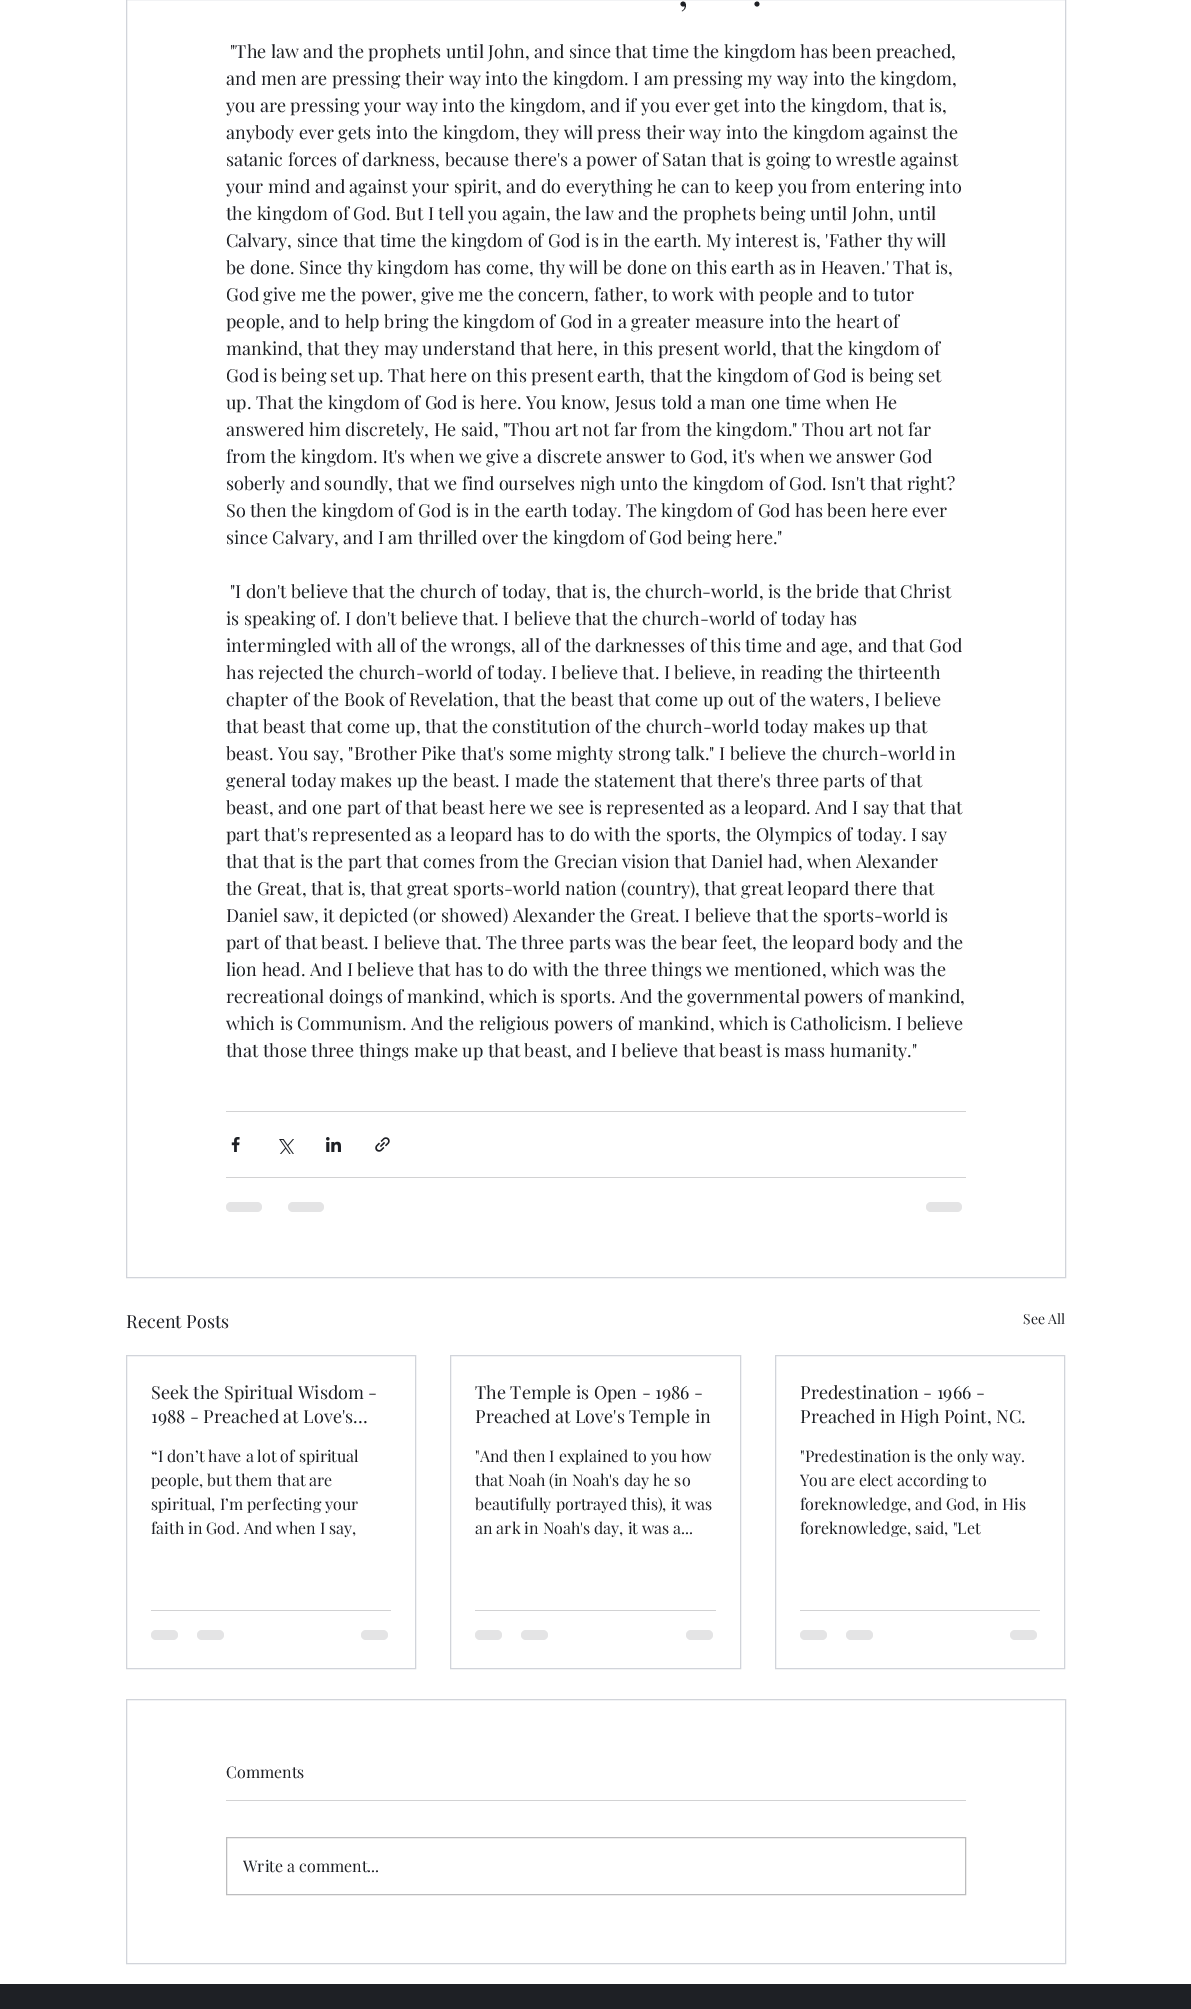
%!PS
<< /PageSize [1191 2009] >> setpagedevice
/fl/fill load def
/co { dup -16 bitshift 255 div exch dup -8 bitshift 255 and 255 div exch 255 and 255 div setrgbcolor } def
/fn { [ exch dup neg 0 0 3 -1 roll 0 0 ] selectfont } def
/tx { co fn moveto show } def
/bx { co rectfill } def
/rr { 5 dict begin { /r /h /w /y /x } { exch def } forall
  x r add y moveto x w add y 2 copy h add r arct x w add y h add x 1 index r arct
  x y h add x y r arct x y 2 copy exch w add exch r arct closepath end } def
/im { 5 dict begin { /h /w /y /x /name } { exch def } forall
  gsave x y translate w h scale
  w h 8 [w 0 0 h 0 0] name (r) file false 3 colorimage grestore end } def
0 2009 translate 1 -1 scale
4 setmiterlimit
0 0 1191 2009 16#FFFFFF bx
16#D1D4DA co
126.5 -.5 939 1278 rectstroke
226 1111 740 1 16#D2D2D3 bx
(media/1.raw) 231 1137 9 15 im
(media/2.raw) 279 1139 15 15 im
(media/3.raw) 326 1137 15 15 im
(media/4.raw) 375 1137 15 15 im
226 1177 740 1 16#D2D2D3 bx
16#E4E4E5 co
226 1202 36 10 5 rr fl
288 1202 36 10 5 rr fl
926 1202 36 10 5 rr fl
16#D1D4DA co
126.5 1355.5 289 313 rectstroke
151 1610 240 1 16#D2D2D3 bx
16#E4E4E5 co
151 1630 27 10 5 rr fl
197 1630 27 10 5 rr fl
361 1630 27 10 5 rr fl
16#D1D4DA co
450.5 1355.5 290 313 rectstroke
475 1610 241 1 16#D2D2D3 bx
16#E4E4E5 co
475 1630 27 10 5 rr fl
521 1630 27 10 5 rr fl
686 1630 27 10 5 rr fl
16#D1D4DA co
775.5 1355.5 289 313 rectstroke
800 1610 240 1 16#D2D2D3 bx
16#E4E4E5 co
800 1630 27 10 5 rr fl
846 1630 27 10 5 rr fl
1010 1630 27 10 5 rr fl
16#D1D4DA co
126.5 1699.5 939 264 rectstroke
226 1800 740 1 16#D2D2D3 bx
16#BCBCBE co
226.5 1837.5 739 57 rectstroke
0 1984 1191 25 16#1E2025 bx
(,) 678 6 /PlayfairDisplay-Regular 40 16#1E2025 tx
(.) 752 6 /PlayfairDisplay-Regular 40 16#1E2025 tx
("The law and the prophets until John, and since that time the kingdom has been preached,) 230 58 /PlayfairDisplay-Regular 18 16#1E2025 tx
(and men are pressing their way into the kingdom. I am pressing my way into the kingdom,) 226 85 /PlayfairDisplay-Regular 18 16#1E2025 tx
(you are pressing your way into the kingdom, and if you ever get into the kingdom, that is,) 226 112 /PlayfairDisplay-Regular 18 16#1E2025 tx
(anybody ever gets into the kingdom, they will press their way into the kingdom against the) 226 139 /PlayfairDisplay-Regular 18 16#1E2025 tx
(satanic forces of darkness, because there's a power of Satan that is going to wrestle against) 226 166 /PlayfairDisplay-Regular 18 16#1E2025 tx
(your mind and against your spirit, and do everything he can to keep you from entering into) 226 193 /PlayfairDisplay-Regular 18 16#1E2025 tx
(the kingdom of God. But I tell you again, the law and the prophets being until John, until) 226 220 /PlayfairDisplay-Regular 18 16#1E2025 tx
(Calvary, since that time the kingdom of God is in the earth. My interest is, 'Father thy will) 226 247 /PlayfairDisplay-Regular 18 16#1E2025 tx
(be done. Since thy kingdom has come, thy will be done on this earth as in Heaven.' That is,) 226 274 /PlayfairDisplay-Regular 18 16#1E2025 tx
(God give me the power, give me the concern, father, to work with people and to tutor) 226 301 /PlayfairDisplay-Regular 18 16#1E2025 tx
(people, and to help bring the kingdom of God in a greater measure into the heart of) 226 328 /PlayfairDisplay-Regular 18 16#1E2025 tx
(mankind, that they may understand that here, in this present world, that the kingdom of) 226 355 /PlayfairDisplay-Regular 18 16#1E2025 tx
(God is being set up. That here on this present earth, that the kingdom of God is being set) 226 382 /PlayfairDisplay-Regular 18 16#1E2025 tx
(up. That the kingdom of God is here. You know, Jesus told a man one time when He) 226 409 /PlayfairDisplay-Regular 18 16#1E2025 tx
(answered him discretely, He said, "Thou art not far from the kingdom." Thou art not far) 226 436 /PlayfairDisplay-Regular 18 16#1E2025 tx
(from the kingdom. It's when we give a discrete answer to God, it's when we answer God) 226 463 /PlayfairDisplay-Regular 18 16#1E2025 tx
(soberly and soundly, that we find ourselves nigh unto the kingdom of God. Isn't that right?) 226 490 /PlayfairDisplay-Regular 18 16#1E2025 tx
(So then the kingdom of God is in the earth today. The kingdom of God has been here ever) 226 517 /PlayfairDisplay-Regular 18 16#1E2025 tx
(since Calvary, and I am thrilled over the kingdom of God being here.") 226 544 /PlayfairDisplay-Regular 18 16#1E2025 tx
("I don't believe that the church of today, that is, the church-world, is the bride that Christ) 230 598 /PlayfairDisplay-Regular 18 16#1E2025 tx
(is speaking of. I don't believe that. I believe that the church-world of today has) 226 625 /PlayfairDisplay-Regular 18 16#1E2025 tx
(intermingled with all of the wrongs, all of the darknesses of this time and age, and that God) 226 652 /PlayfairDisplay-Regular 18 16#1E2025 tx
(has rejected the church-world of today. I believe that. I believe, in reading the thirteenth) 226 679 /PlayfairDisplay-Regular 18 16#1E2025 tx
(chapter of the Book of Revelation, that the beast that come up out of the waters, I believe) 226 706 /PlayfairDisplay-Regular 18 16#1E2025 tx
(that beast that come up, that the constitution of the church-world today makes up that) 226 733 /PlayfairDisplay-Regular 18 16#1E2025 tx
(beast. You say, "Brother Pike that's some mighty strong talk." I believe the church-world in) 226 760 /PlayfairDisplay-Regular 18 16#1E2025 tx
(general today makes up the beast. I made the statement that there's three parts of that) 226 787 /PlayfairDisplay-Regular 18 16#1E2025 tx
(beast, and one part of that beast here we see is represented as a leopard. And I say that that) 226 814 /PlayfairDisplay-Regular 18 16#1E2025 tx
(part that's represented as a leopard has to do with the sports, the Olympics of today. I say) 226 841 /PlayfairDisplay-Regular 18 16#1E2025 tx
(that that is the part that comes from the Grecian vision that Daniel had, when Alexander) 226 868 /PlayfairDisplay-Regular 18 16#1E2025 tx
(the Great, that is, that great sports-world nation \(country\), that great leopard there that) 226 895 /PlayfairDisplay-Regular 18 16#1E2025 tx
(Daniel saw, it depicted \(or showed\) Alexander the Great. I believe that the sports-world is) 226 922 /PlayfairDisplay-Regular 18 16#1E2025 tx
(part of that beast. I believe that. The three parts was the bear feet, the leopard body and the) 226 949 /PlayfairDisplay-Regular 18 16#1E2025 tx
(lion head. And I believe that has to do with the three things we mentioned, which was the) 226 976 /PlayfairDisplay-Regular 18 16#1E2025 tx
(recreational doings of mankind, which is sports. And the governmental powers of mankind,) 226 1003 /PlayfairDisplay-Regular 18 16#1E2025 tx
(which is Communism. And the religious powers of mankind, which is Catholicism. I believe) 226 1030 /PlayfairDisplay-Regular 18 16#1E2025 tx
(that those three things make up that beast, and I believe that beast is mass humanity.") 226 1057 /PlayfairDisplay-Regular 18 16#1E2025 tx
(Recent Posts) 126 1328 /PlayfairDisplay-Regular 18 16#1E2025 tx
(See All) 1023 1324 /PlayfairDisplay-Regular 14 16#1E2025 tx
(Seek the Spiritual Wisdom -) 151 1399 /PlayfairDisplay-Regular 18 16#1E2025 tx
(1988 - Preached at Love's…) 151 1423 /PlayfairDisplay-Regular 18 16#1E2025 tx
(“I don’t have a lot of spiritual) 151 1462 /PlayfairDisplay-Regular 16 16#1E2025 tx
(people, but them that are) 151 1486 /PlayfairDisplay-Regular 16 16#1E2025 tx
(spiritual, I’m perfecting your) 151 1510 /PlayfairDisplay-Regular 16 16#1E2025 tx
(faith in God. And when I say,) 151 1534 /PlayfairDisplay-Regular 16 16#1E2025 tx
(The Temple is Open - 1986 -) 475 1399 /PlayfairDisplay-Regular 18 16#1E2025 tx
(Preached at Love's Temple in) 475 1423 /PlayfairDisplay-Regular 18 16#1E2025 tx
("And then I explained to you how) 475 1462 /PlayfairDisplay-Regular 16 16#1E2025 tx
(that Noah \(in Noah's day he so) 475 1486 /PlayfairDisplay-Regular 16 16#1E2025 tx
(beautifully portrayed this\), it was) 475 1510 /PlayfairDisplay-Regular 16 16#1E2025 tx
(an ark in Noah's day, it was a...) 475 1534 /PlayfairDisplay-Regular 16 16#1E2025 tx
(Predestination - 1966 -) 800 1399 /PlayfairDisplay-Regular 18 16#1E2025 tx
(Preached in High Point, NC.) 800 1423 /PlayfairDisplay-Regular 18 16#1E2025 tx
("Predestination is the only way.) 800 1462 /PlayfairDisplay-Regular 16 16#1E2025 tx
(You are elect according to) 800 1486 /PlayfairDisplay-Regular 16 16#1E2025 tx
(foreknowledge, and God, in His) 800 1510 /PlayfairDisplay-Regular 16 16#1E2025 tx
(foreknowledge, said, "Let) 800 1534 /PlayfairDisplay-Regular 16 16#1E2025 tx
(Comments) 226 1778 /PlayfairDisplay-Regular 16 16#1E2025 tx
(Write a comment...) 243 1872 /PlayfairDisplay-Regular 16 16#1E2025 tx
showpage
